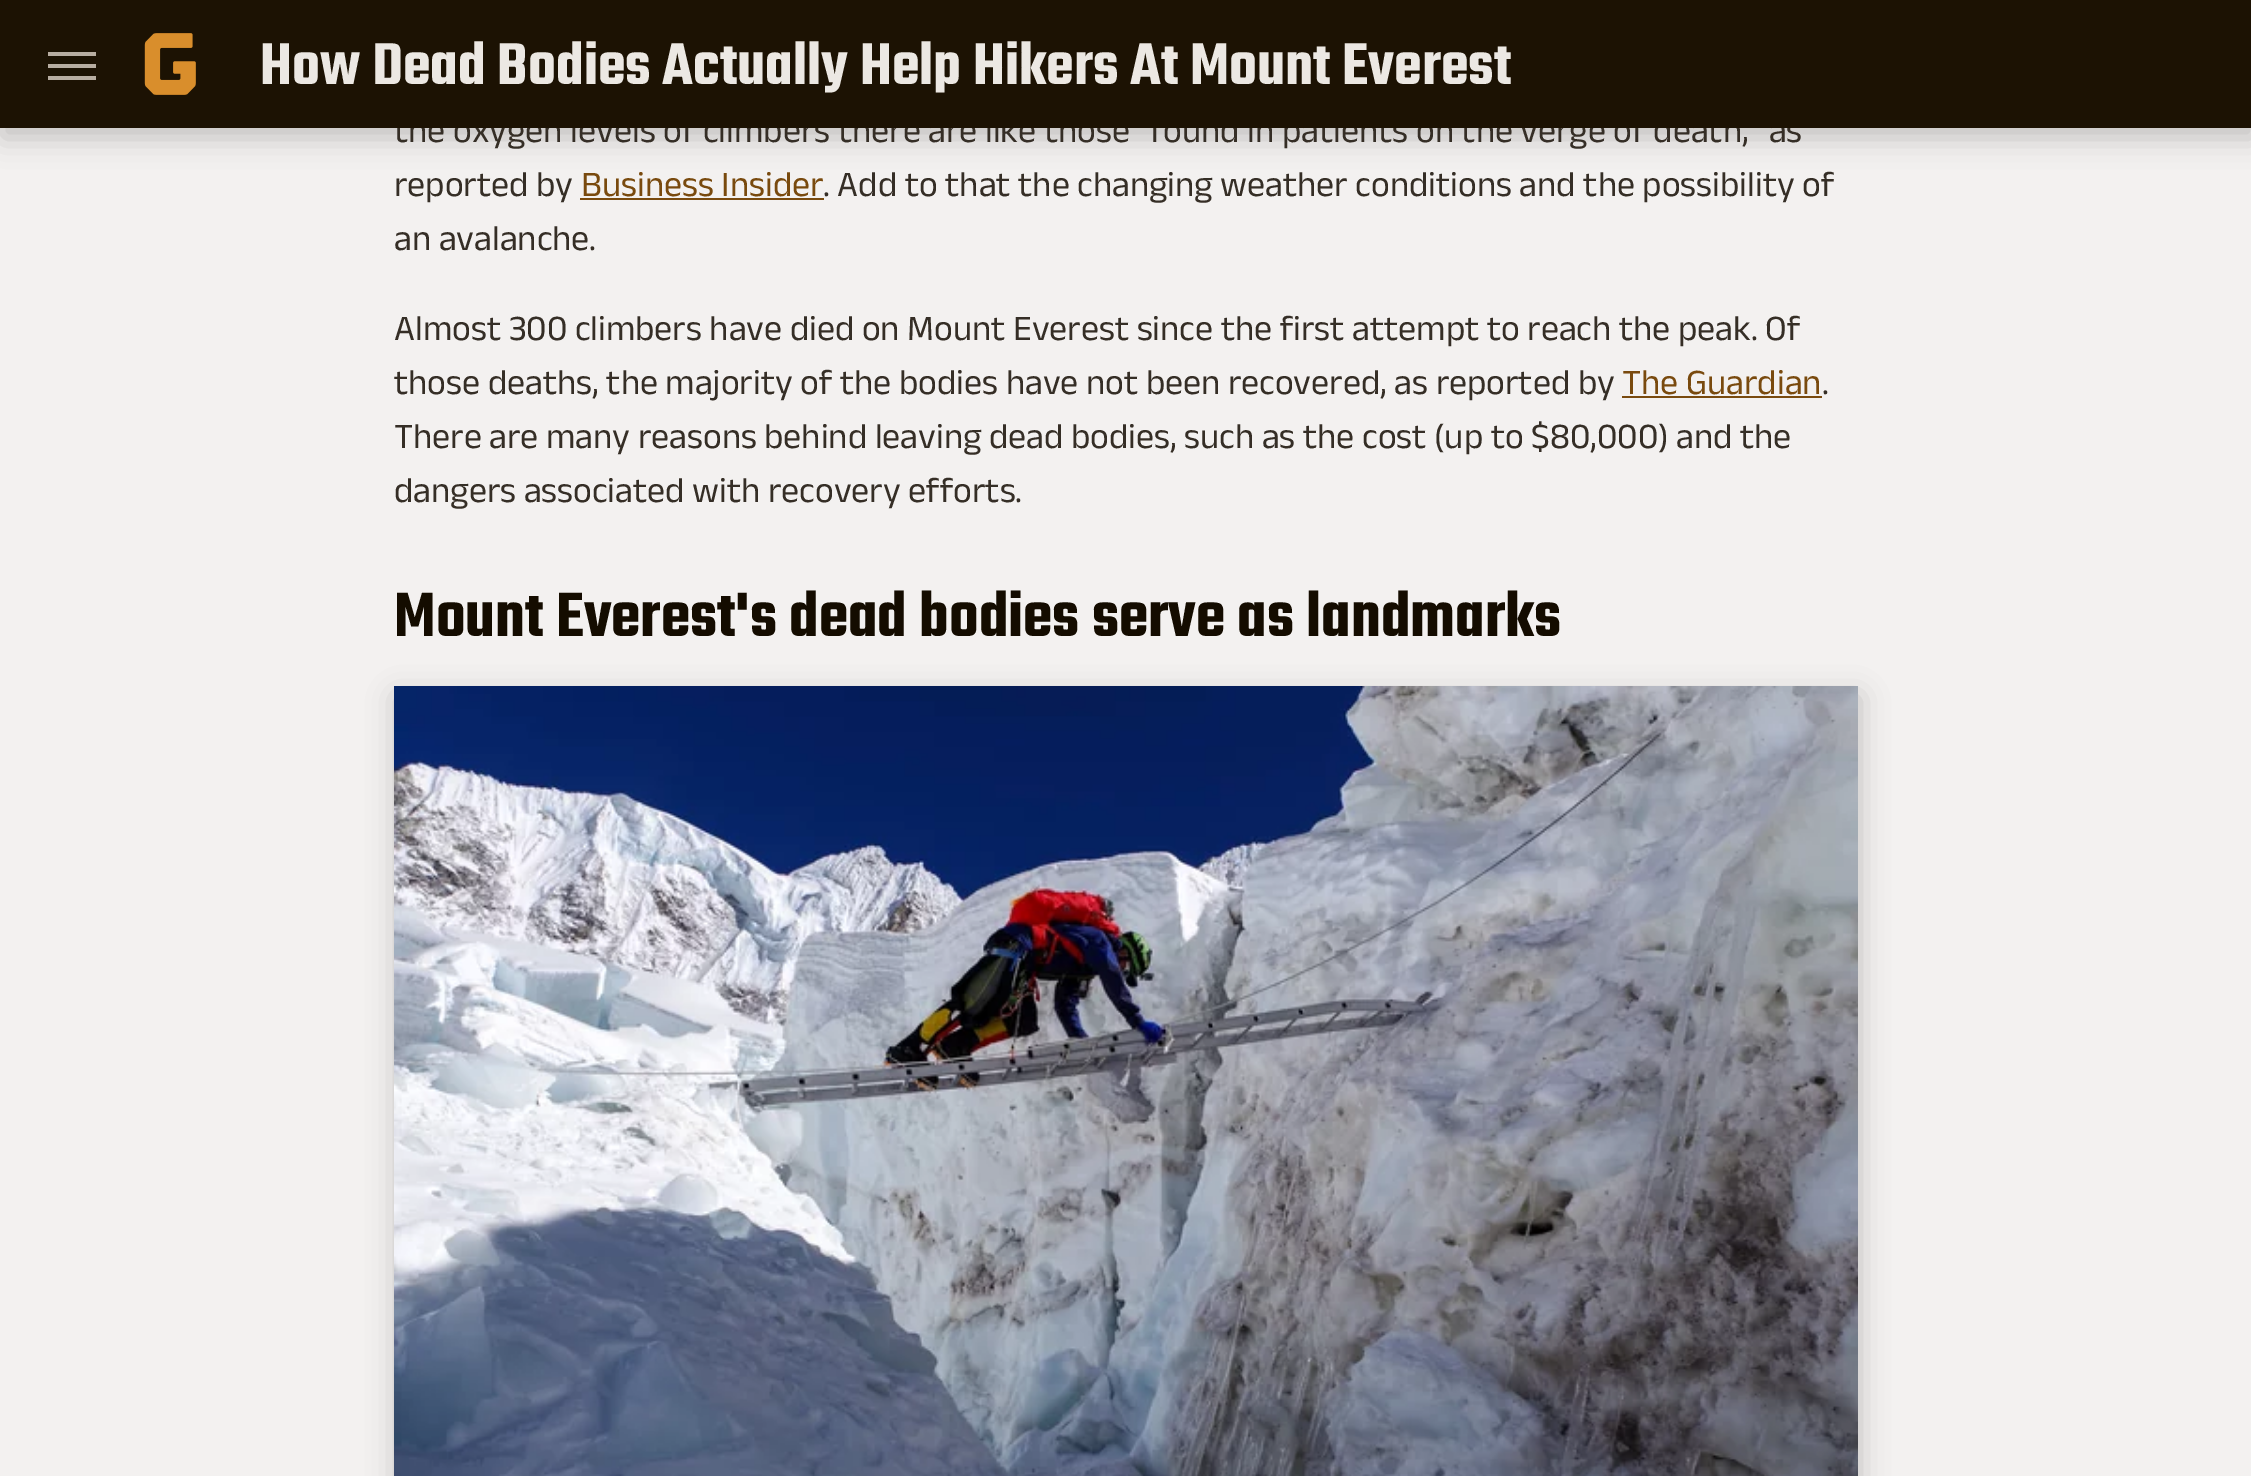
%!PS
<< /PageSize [2251 1476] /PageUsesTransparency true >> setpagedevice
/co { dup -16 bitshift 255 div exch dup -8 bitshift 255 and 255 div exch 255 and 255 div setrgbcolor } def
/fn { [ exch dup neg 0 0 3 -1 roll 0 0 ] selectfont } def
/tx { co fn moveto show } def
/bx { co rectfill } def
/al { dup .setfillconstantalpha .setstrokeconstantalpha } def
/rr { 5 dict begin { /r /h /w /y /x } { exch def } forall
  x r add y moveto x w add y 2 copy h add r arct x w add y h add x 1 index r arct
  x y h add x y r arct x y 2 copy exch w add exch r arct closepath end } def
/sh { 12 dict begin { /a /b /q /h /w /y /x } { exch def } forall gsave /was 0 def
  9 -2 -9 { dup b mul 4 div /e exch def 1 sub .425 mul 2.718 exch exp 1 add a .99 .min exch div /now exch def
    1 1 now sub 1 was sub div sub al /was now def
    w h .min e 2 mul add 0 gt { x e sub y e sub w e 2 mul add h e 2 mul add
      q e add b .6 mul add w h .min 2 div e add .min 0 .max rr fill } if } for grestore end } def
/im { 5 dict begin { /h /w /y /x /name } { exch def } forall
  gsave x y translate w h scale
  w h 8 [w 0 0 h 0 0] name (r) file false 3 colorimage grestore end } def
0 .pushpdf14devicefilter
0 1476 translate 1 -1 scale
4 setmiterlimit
0 0 2251 1476 16#F3F1F0 bx
16#000000 co
2 10 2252 128 0 14 .2 sh
580 198 244 2 16#794A0E bx
1622 396 200 2 16#794A0E bx
16#000000 co
396 696 1464 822 0 14 .2 sh
(media/2.raw) 394 686 1464 790 im
(the oxygen levels of climbers there are like those "found in patients on the verge of death," as) 394 142 /AnekLatin-Regular 36 16#352E26 tx
0 0 2251 128 16#1C1203 bx
(media/1.raw) 144 33 52 62 im
48 64 48 4 16#B7ADA1 bx
48 76 48 4 16#B7ADA1 bx
48 52 48 4 16#B7ADA1 bx
(How Dead Bodies Actually Help Hikers At Mount Everest) 260 84 /Teko-SemiBold 64 16#ECE8E3 tx
(reported by) 394 196 /AnekLatin-Regular 36 16#352E26 tx
(Business Insider) 581 196 /AnekLatin-Regular 36 16#794A0E tx
(. Add to that the changing weather conditions and the possibility of) 823 196 /AnekLatin-Regular 36 16#352E26 tx
(an avalanche.) 394 250 /AnekLatin-Regular 36 16#352E26 tx
(Almost 300 climbers have died on Mount Everest since the first attempt to reach the peak. Of) 394 340 /AnekLatin-Regular 36 16#352E26 tx
(those deaths, the majority of the bodies have not been recovered, as reported by) 394 394 /AnekLatin-Regular 36 16#352E26 tx
(The Guardian) 1622 394 /AnekLatin-Regular 36 16#794A0E tx
(.) 1822 394 /AnekLatin-Regular 36 16#352E26 tx
(There are many reasons behind leaving dead bodies, such as the cost \(up to $80,000\) and the) 394 448 /AnekLatin-Regular 36 16#352E26 tx
(dangers associated with recovery efforts.) 394 502 /AnekLatin-Regular 36 16#352E26 tx
(Mount Everest's dead bodies serve as landmarks) 394 636 /Teko-SemiBold 68 16#140C00 tx
.poppdf14devicefilter showpage
